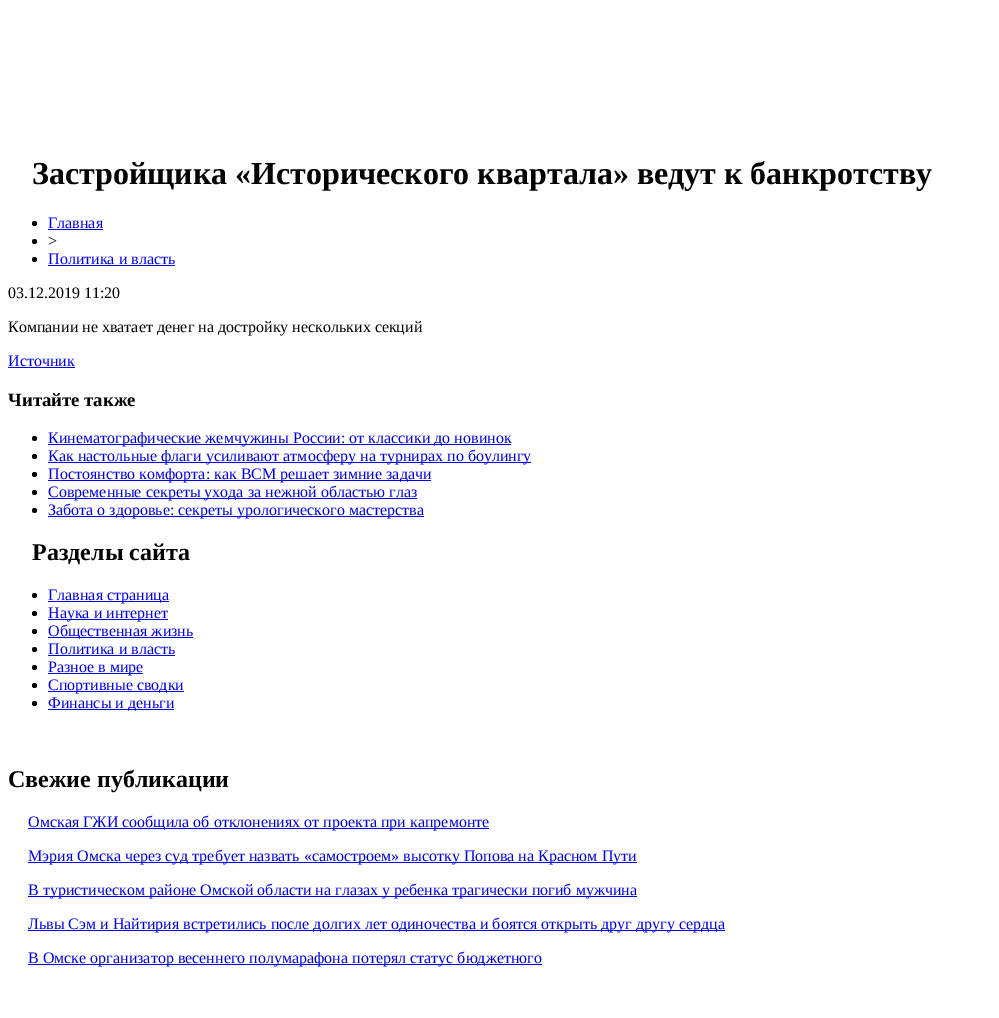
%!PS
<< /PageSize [999 1018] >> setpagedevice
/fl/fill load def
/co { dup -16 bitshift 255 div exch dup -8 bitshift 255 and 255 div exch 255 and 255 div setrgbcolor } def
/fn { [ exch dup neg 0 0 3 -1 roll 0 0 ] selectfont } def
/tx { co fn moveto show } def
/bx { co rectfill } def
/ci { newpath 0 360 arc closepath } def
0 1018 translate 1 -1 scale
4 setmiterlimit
0 0 999 1018 16#FFFFFF bx
16#000000 co
34.5 223.5 2.5 ci fl
48 229 55 1 16#0000EE bx
16#000000 co
34.5 241.5 2.5 ci fl
34.5 259.5 2.5 ci fl
48 265 127 1 16#0000EE bx
8 367 67 1 16#0000EE bx
16#000000 co
34.5 438.5 2.5 ci fl
48 444 463 1 16#0000EE bx
16#000000 co
34.5 456.5 2.5 ci fl
48 462 483 1 16#0000EE bx
16#000000 co
34.5 474.5 2.5 ci fl
48 480 383 1 16#0000EE bx
16#000000 co
34.5 492.5 2.5 ci fl
48 498 369 1 16#0000EE bx
16#000000 co
34.5 510.5 2.5 ci fl
48 516 376 1 16#0000EE bx
16#000000 co
34.5 595.5 2.5 ci fl
48 601 121 1 16#0000EE bx
16#000000 co
34.5 613.5 2.5 ci fl
48 619 120 1 16#0000EE bx
16#000000 co
34.5 631.5 2.5 ci fl
48 637 145 1 16#0000EE bx
16#000000 co
34.5 649.5 2.5 ci fl
48 655 127 1 16#0000EE bx
16#000000 co
34.5 667.5 2.5 ci fl
48 673 95 1 16#0000EE bx
16#000000 co
34.5 685.5 2.5 ci fl
48 691 136 1 16#0000EE bx
16#000000 co
34.5 703.5 2.5 ci fl
48 709 126 1 16#0000EE bx
28 828 461 1 16#0000EE bx
28 862 609 1 16#0000EE bx
28 896 609 1 16#0000EE bx
28 930 697 1 16#0000EE bx
28 964 514 1 16#0000EE bx
(Застройщика «Исторического квартала» ведут к банкротству) 32 184 /LiberationSerif-Bold 32 16#000000 tx
(Главная) 48 228 /LiberationSerif-Regular 16 16#0000EE tx
(>) 48 246 /LiberationSerif-Regular 16 16#000000 tx
(Политика и власть) 48 264 /LiberationSerif-Regular 16 16#0000EE tx
(03.12.2019 11:20) 8 298 /LiberationSerif-Regular 16 16#000000 tx
(Компании не хватает денег на достройку нескольких секций) 8 332 /LiberationSerif-Regular 16 16#000000 tx
(Источник) 8 366 /LiberationSerif-Regular 16 16#0000EE tx
(Читайте также) 8 406 /LiberationSerif-Bold 18.75 16#000000 tx
(Кинематографические жемчужины России: от классики до новинок) 48 443 /LiberationSerif-Regular 16 16#0000EE tx
(Как настольные флаги усиливают атмосферу на турнирах по боулингу) 48 461 /LiberationSerif-Regular 16 16#0000EE tx
(Постоянство комфорта: как ВСМ решает зимние задачи) 48 479 /LiberationSerif-Regular 16 16#0000EE tx
(Современные секреты ухода за нежной областью глаз) 48 497 /LiberationSerif-Regular 16 16#0000EE tx
(Забота о здоровье: секреты урологического мастерства) 48 515 /LiberationSerif-Regular 16 16#0000EE tx
(Разделы сайта) 32 560 /LiberationSerif-Bold 24 16#000000 tx
(Главная страница) 48 600 /LiberationSerif-Regular 16 16#0000EE tx
(Наука и интернет) 48 618 /LiberationSerif-Regular 16 16#0000EE tx
(Общественная жизнь) 48 636 /LiberationSerif-Regular 16 16#0000EE tx
(Политика и власть) 48 654 /LiberationSerif-Regular 16 16#0000EE tx
(Разное в мире) 48 672 /LiberationSerif-Regular 16 16#0000EE tx
(Спортивные сводки) 48 690 /LiberationSerif-Regular 16 16#0000EE tx
(Финансы и деньги) 48 708 /LiberationSerif-Regular 16 16#0000EE tx
(Свежие публикации) 8 787 /LiberationSerif-Bold 24 16#000000 tx
(Омская ГЖИ сообщила об отклонениях от проекта при капремонте) 28 827 /LiberationSerif-Regular 16 16#0000EE tx
(Мэрия Омска через суд требует назвать «самостроем» высотку Попова на Красном Пути) 28 861 /LiberationSerif-Regular 16 16#0000EE tx
(В туристическом районе Омской области на глазах у ребенка трагически погиб мужчина) 28 895 /LiberationSerif-Regular 16 16#0000EE tx
(Львы Сэм и Найтирия встретились после долгих лет одиночества и боятся открыть друг другу сердца) 28 929 /LiberationSerif-Regular 16 16#0000EE tx
(В Омске организатор весеннего полумарафона потерял статус бюджетного) 28 963 /LiberationSerif-Regular 16 16#0000EE tx
showpage
